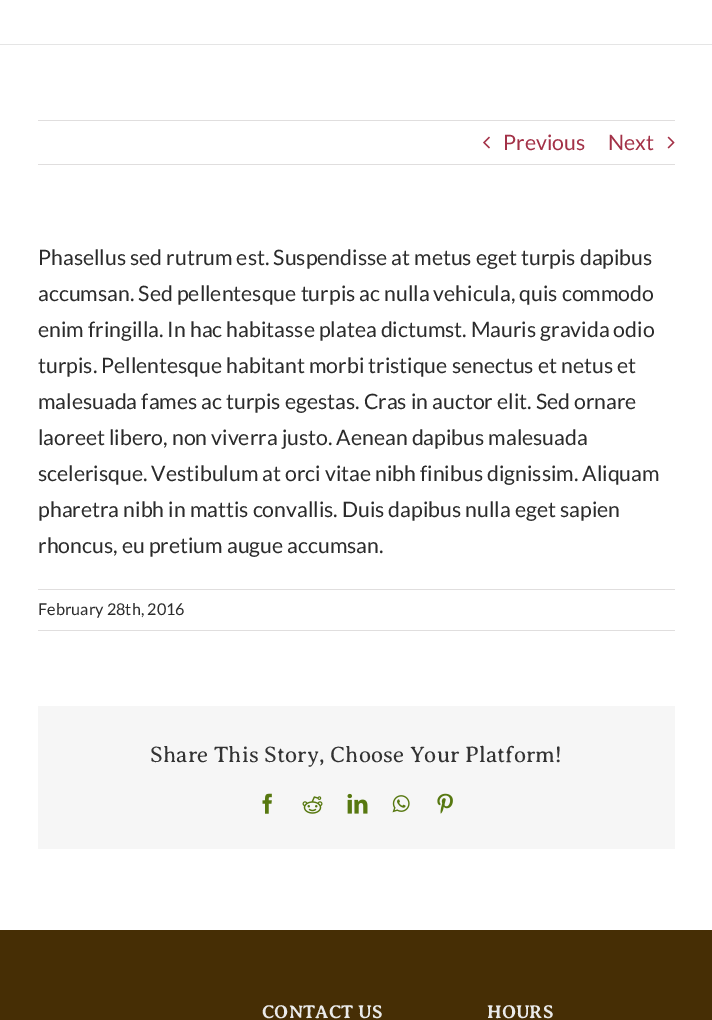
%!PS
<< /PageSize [712 1020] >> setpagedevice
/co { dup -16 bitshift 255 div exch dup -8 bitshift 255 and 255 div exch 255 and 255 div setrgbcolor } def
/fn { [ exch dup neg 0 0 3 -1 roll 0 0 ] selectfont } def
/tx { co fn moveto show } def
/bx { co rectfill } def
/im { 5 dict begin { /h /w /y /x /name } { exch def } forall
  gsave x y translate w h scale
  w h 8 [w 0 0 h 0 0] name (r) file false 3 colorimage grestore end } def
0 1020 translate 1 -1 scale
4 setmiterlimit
0 0 712 1020 16#FFFFFF bx
0 44 712 1 16#E5E5E5 bx
38 120 637 1 16#E0DEDE bx
38 164 637 1 16#E0DEDE bx
(media/1.raw) 483 136 7 13 im
(media/2.raw) 667 136 8 13 im
38 589 637 1 16#E0DEDE bx
38 630 637 1 16#E0DEDE bx
38 706 637 143 16#F6F6F6 bx
(media/3.raw) 262 793 10 21 im
(media/4.raw) 302 796 21 18 im
(media/5.raw) 347 793 21 21 im
(media/6.raw) 392 795 18 18 im
(media/7.raw) 437 793 16 21 im
0 930 712 90 16#462E05 bx
(Previous) 503 150 /Lato-Regular 21.25 16#A33147 tx
(Next) 608 150 /Lato-Regular 21.25 16#A33147 tx
(Phasellus sed rutrum est. Suspendisse at metus eget turpis dapibus) 38 265 /Lato-Regular 21.25 16#2B2B2B tx
(accumsan. Sed pellentesque turpis ac nulla vehicula, quis commodo) 38 301 /Lato-Regular 21.25 16#2B2B2B tx
(enim fringilla. In hac habitasse platea dictumst. Mauris gravida odio) 38 337 /Lato-Regular 21.25 16#2B2B2B tx
(turpis. Pellentesque habitant morbi tristique senectus et netus et) 38 373 /Lato-Regular 21.25 16#2B2B2B tx
(malesuada fames ac turpis egestas. Cras in auctor elit. Sed ornare) 38 409 /Lato-Regular 21.25 16#2B2B2B tx
(laoreet libero, non viverra justo. Aenean dapibus malesuada) 38 445 /Lato-Regular 21.25 16#2B2B2B tx
(scelerisque. Vestibulum at orci vitae nibh finibus dignissim. Aliquam) 38 481 /Lato-Regular 21.25 16#2B2B2B tx
(pharetra nibh in mattis convallis. Duis dapibus nulla eget sapien) 38 517 /Lato-Regular 21.25 16#2B2B2B tx
(rhoncus, eu pretium augue accumsan.) 38 553 /Lato-Regular 21.25 16#2B2B2B tx
(February 28th, 2016) 38 615 /Lato-Regular 16.25 16#2B2B2B tx
(Share This Story, Choose Your Platform!) 150 762 /AveriaSerifLibre-Light 22.5 16#333333 tx
(CONTACT US) 262 1018 /AveriaSerifLibre-Bold 18.75 16#EAEAEA tx
(HOURS) 487 1018 /AveriaSerifLibre-Bold 18.75 16#EAEAEA tx
showpage
